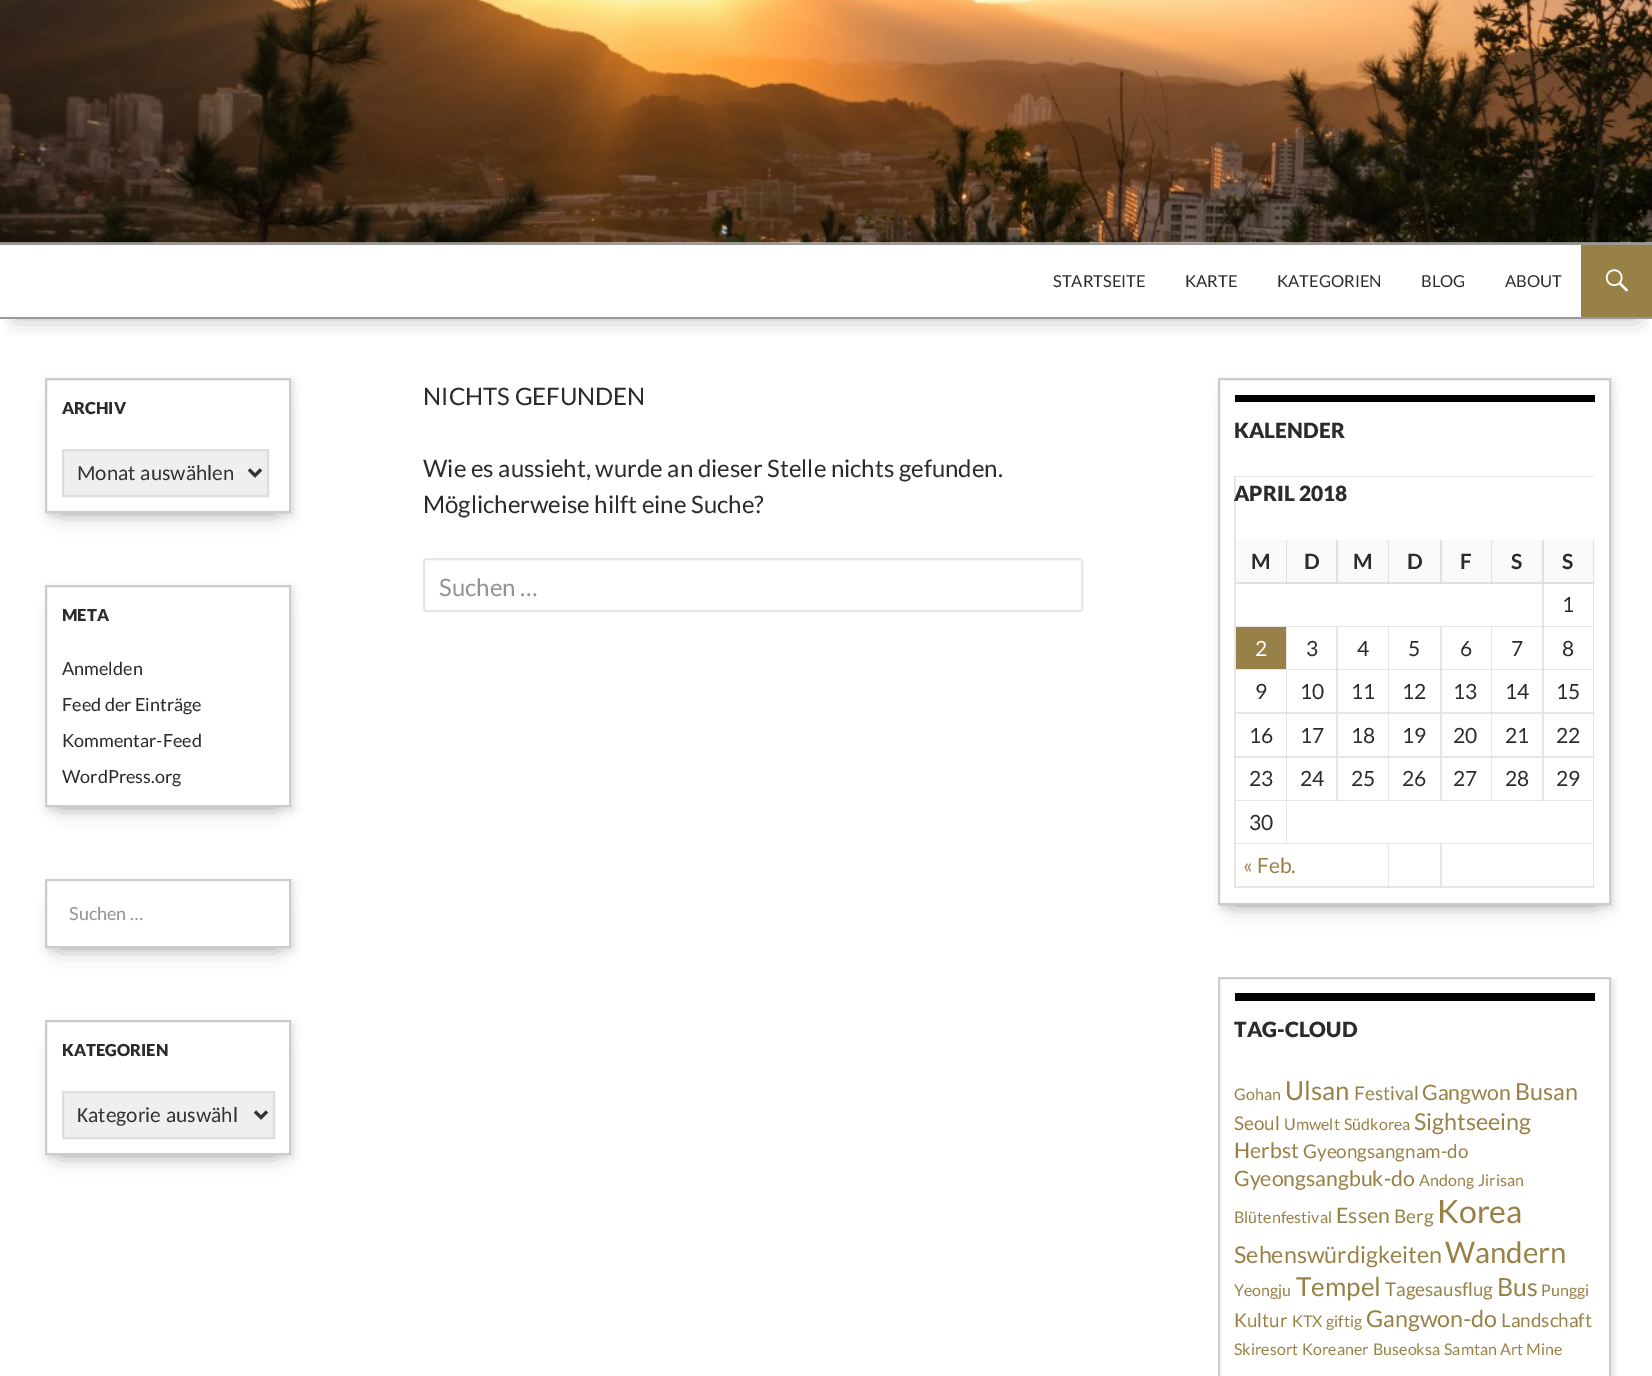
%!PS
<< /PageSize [1652 1376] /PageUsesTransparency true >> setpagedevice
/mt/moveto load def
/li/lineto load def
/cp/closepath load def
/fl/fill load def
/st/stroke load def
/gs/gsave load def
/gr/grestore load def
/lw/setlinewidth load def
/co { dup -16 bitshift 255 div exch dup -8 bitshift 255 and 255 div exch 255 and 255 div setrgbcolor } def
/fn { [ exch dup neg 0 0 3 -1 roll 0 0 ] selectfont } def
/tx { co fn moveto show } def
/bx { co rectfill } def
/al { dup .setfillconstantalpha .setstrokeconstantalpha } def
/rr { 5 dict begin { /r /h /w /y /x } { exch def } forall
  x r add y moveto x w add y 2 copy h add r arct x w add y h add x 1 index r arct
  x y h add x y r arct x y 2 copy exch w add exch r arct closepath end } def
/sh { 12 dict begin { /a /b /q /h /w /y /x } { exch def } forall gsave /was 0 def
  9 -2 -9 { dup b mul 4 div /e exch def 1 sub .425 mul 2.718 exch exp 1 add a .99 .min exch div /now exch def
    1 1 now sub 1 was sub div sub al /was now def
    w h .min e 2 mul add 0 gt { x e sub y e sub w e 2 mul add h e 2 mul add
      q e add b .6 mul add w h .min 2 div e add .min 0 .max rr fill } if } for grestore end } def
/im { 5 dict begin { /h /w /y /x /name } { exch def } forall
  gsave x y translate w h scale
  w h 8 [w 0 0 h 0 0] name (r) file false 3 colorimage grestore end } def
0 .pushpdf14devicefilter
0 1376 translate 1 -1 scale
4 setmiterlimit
0 0 1652 1376 16#FFFFFF bx
(media/1.raw) 0 0 1652 243 im
gs
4 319 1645 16 rectclip
16#000000 co
15 273 1623 45 0 11 .3 sh
gr
0 243 1652 2 16#999999 bx
0 317 1652 2 16#999999 bx
1581 245 71 72 16#988146 bx
(media/2.raw) 1605 269 24 23 im
gs
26 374 mt 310 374 li 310 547 li 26 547 li cp 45 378 mt 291 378 li 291 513 li 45 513 li cp eoclip newpath
16#000000 co
60 408 216 105 0 11 .3 sh
gr
gs
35 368 mt 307 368 li 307 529 li 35 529 li cp 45 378 mt 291 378 li 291 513 li 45 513 li cp eoclip newpath
16#000000 co
48 381 246 135 0 4 .1 sh
gr
16#CCCCCC co
2 lw
46 379 244 133 rectstroke
16#EFEFEF co
63 450 mt 268 450 li 268 496 li 63 496 li cp gs fl gr
16#DDDDDD co
st
16#333333 co
3 lw
249 469.5 mt 255 475.5 li 261 469.5 li st
gs
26 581 mt 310 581 li 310 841 li 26 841 li cp 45 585 mt 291 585 li 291 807 li 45 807 li cp eoclip newpath
16#000000 co
60 615 216 192 0 11 .3 sh
gr
gs
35 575 mt 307 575 li 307 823 li 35 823 li cp 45 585 mt 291 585 li 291 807 li 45 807 li cp eoclip newpath
16#000000 co
48 588 246 222 0 4 .1 sh
gr
16#CCCCCC co
2 lw
46 586 244 220 rectstroke
gs
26 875 mt 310 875 li 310 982 li 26 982 li cp 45 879 mt 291 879 li 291 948 li 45 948 li cp eoclip newpath
16#000000 co
60 909 216 39 0 11 .3 sh
gr
gs
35 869 mt 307 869 li 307 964 li 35 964 li cp 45 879 mt 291 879 li 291 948 li 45 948 li cp eoclip newpath
16#000000 co
48 882 246 69 0 4 .1 sh
gr
46 880 244 67 rectstroke
gs
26 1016 mt 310 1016 li 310 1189 li 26 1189 li cp 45 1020 mt 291 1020 li 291 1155 li 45 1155 li cp eoclip newpath
16#000000 co
60 1050 216 105 0 11 .3 sh
gr
gs
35 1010 mt 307 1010 li 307 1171 li 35 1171 li cp 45 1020 mt 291 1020 li 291 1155 li 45 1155 li cp eoclip newpath
16#000000 co
48 1023 246 135 0 4 .1 sh
gr
46 1021 244 133 rectstroke
16#EFEFEF co
63 1092 mt 274 1092 li 274 1138 li 63 1138 li cp gs fl gr
16#DDDDDD co
st
16#333333 co
3 lw
255 1111.5 mt 261 1117.5 li 267 1111.5 li st
16#E6E6E6 co
2 lw
424 559 658 52 2 rr st
gs
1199 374 mt 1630 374 li 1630 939 li 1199 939 li cp 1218 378 mt 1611 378 li 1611 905 li 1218 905 li cp eoclip newpath
16#000000 co
1233 408 363 497 0 11 .3 sh
gr
gs
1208 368 mt 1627 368 li 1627 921 li 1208 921 li cp 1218 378 mt 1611 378 li 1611 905 li 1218 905 li cp eoclip newpath
16#000000 co
1221 381 393 527 0 4 .1 sh
gr
0.2 al
16#000000 co
1219 379 391 525 rectstroke
1 al
1235 395 360 7 16#000000 bx
16#E6E6E6 co
1234 476 mt 1594 476 li 1594 477 li 1236 477 li cp fl
0.1 al
16#000000 co
1234 888 mt 1234 476 li 1236 477 li 1236 888 li cp fl
1 al
1236 540 359 44 16#FAFAFA bx
16#E1E1E1 co
1287 540 mt 1287 584 li 1286 582 li 1286 540 li cp fl
0.1 al
16#000000 co
1287 584 mt 1236 584 li 1236 582 li 1286 582 li cp fl
1 al
16#E1E1E1 co
1338 540 mt 1338 584 li 1336 582 li 1336 540 li cp fl
0.1 al
16#000000 co
1338 584 mt 1287 584 li 1287 582 li 1336 582 li cp fl
1 al
16#E1E1E1 co
1389 540 mt 1389 584 li 1388 582 li 1388 540 li cp fl
0.1 al
16#000000 co
1389 584 mt 1338 584 li 1338 582 li 1388 582 li cp fl
1 al
16#E1E1E1 co
1442 540 mt 1442 584 li 1440 582 li 1440 540 li cp fl
0.1 al
16#000000 co
1442 584 mt 1389 584 li 1389 582 li 1440 582 li cp fl
1 al
16#E1E1E1 co
1492 540 mt 1492 584 li 1491 582 li 1491 540 li cp fl
0.1 al
16#000000 co
1492 584 mt 1442 584 li 1442 582 li 1491 582 li cp fl
1 al
16#E1E1E1 co
1544 540 mt 1544 584 li 1542 582 li 1542 540 li cp fl
0.1 al
16#000000 co
1544 584 mt 1492 584 li 1492 582 li 1542 582 li cp fl
1 al
16#E1E1E1 co
1594 540 mt 1594 584 li 1593 582 li 1593 540 li cp fl
0.1 al
16#000000 co
1594 584 mt 1544 584 li 1544 582 li 1593 582 li cp fl
1 al
16#E6E6E6 co
1544 584 mt 1544 627 li 1542 626 li 1542 584 li cp fl
0.1 al
16#000000 co
1544 627 mt 1236 627 li 1236 626 li 1542 626 li cp fl
1 al
16#E6E6E6 co
1594 584 mt 1594 627 li 1593 626 li 1593 584 li cp fl
0.1 al
16#000000 co
1594 627 mt 1544 627 li 1544 626 li 1593 626 li cp fl
1 al
16#E6E6E6 co
1287 627 mt 1287 670 li 1286 669 li 1286 627 li cp fl
0.1 al
16#000000 co
1287 670 mt 1236 670 li 1236 669 li 1286 669 li cp fl
1 al
1236 627 50 42 16#988146 bx
16#E6E6E6 co
1338 627 mt 1338 670 li 1336 669 li 1336 627 li cp fl
0.1 al
16#000000 co
1338 670 mt 1287 670 li 1287 669 li 1336 669 li cp fl
1 al
16#E6E6E6 co
1389 627 mt 1389 670 li 1388 669 li 1388 627 li cp fl
0.1 al
16#000000 co
1389 670 mt 1338 670 li 1338 669 li 1388 669 li cp fl
1 al
16#E6E6E6 co
1442 627 mt 1442 670 li 1440 669 li 1440 627 li cp fl
0.1 al
16#000000 co
1442 670 mt 1389 670 li 1389 669 li 1440 669 li cp fl
1 al
16#E6E6E6 co
1492 627 mt 1492 670 li 1491 669 li 1491 627 li cp fl
0.1 al
16#000000 co
1492 670 mt 1442 670 li 1442 669 li 1491 669 li cp fl
1 al
16#E6E6E6 co
1544 627 mt 1544 670 li 1542 669 li 1542 627 li cp fl
0.1 al
16#000000 co
1544 670 mt 1492 670 li 1492 669 li 1542 669 li cp fl
1 al
16#E6E6E6 co
1594 627 mt 1594 670 li 1593 669 li 1593 627 li cp fl
0.1 al
16#000000 co
1594 670 mt 1544 670 li 1544 669 li 1593 669 li cp fl
1 al
16#E6E6E6 co
1287 670 mt 1287 714 li 1286 712 li 1286 670 li cp fl
0.1 al
16#000000 co
1287 714 mt 1236 714 li 1236 712 li 1286 712 li cp fl
1 al
16#E6E6E6 co
1338 670 mt 1338 714 li 1336 712 li 1336 670 li cp fl
0.1 al
16#000000 co
1338 714 mt 1287 714 li 1287 712 li 1336 712 li cp fl
1 al
16#E6E6E6 co
1389 670 mt 1389 714 li 1388 712 li 1388 670 li cp fl
0.1 al
16#000000 co
1389 714 mt 1338 714 li 1338 712 li 1388 712 li cp fl
1 al
16#E6E6E6 co
1442 670 mt 1442 714 li 1440 712 li 1440 670 li cp fl
0.1 al
16#000000 co
1442 714 mt 1389 714 li 1389 712 li 1440 712 li cp fl
1 al
16#E6E6E6 co
1492 670 mt 1492 714 li 1491 712 li 1491 670 li cp fl
0.1 al
16#000000 co
1492 714 mt 1442 714 li 1442 712 li 1491 712 li cp fl
1 al
16#E6E6E6 co
1544 670 mt 1544 714 li 1542 712 li 1542 670 li cp fl
0.1 al
16#000000 co
1544 714 mt 1492 714 li 1492 712 li 1542 712 li cp fl
1 al
16#E6E6E6 co
1594 670 mt 1594 714 li 1593 712 li 1593 670 li cp fl
0.1 al
16#000000 co
1594 714 mt 1544 714 li 1544 712 li 1593 712 li cp fl
1 al
16#E6E6E6 co
1287 714 mt 1287 758 li 1286 756 li 1286 714 li cp fl
0.1 al
16#000000 co
1287 758 mt 1236 758 li 1236 756 li 1286 756 li cp fl
1 al
16#E6E6E6 co
1338 714 mt 1338 758 li 1336 756 li 1336 714 li cp fl
0.1 al
16#000000 co
1338 758 mt 1287 758 li 1287 756 li 1336 756 li cp fl
1 al
16#E6E6E6 co
1389 714 mt 1389 758 li 1388 756 li 1388 714 li cp fl
0.1 al
16#000000 co
1389 758 mt 1338 758 li 1338 756 li 1388 756 li cp fl
1 al
16#E6E6E6 co
1442 714 mt 1442 758 li 1440 756 li 1440 714 li cp fl
0.1 al
16#000000 co
1442 758 mt 1389 758 li 1389 756 li 1440 756 li cp fl
1 al
16#E6E6E6 co
1492 714 mt 1492 758 li 1491 756 li 1491 714 li cp fl
0.1 al
16#000000 co
1492 758 mt 1442 758 li 1442 756 li 1491 756 li cp fl
1 al
16#E6E6E6 co
1544 714 mt 1544 758 li 1542 756 li 1542 714 li cp fl
0.1 al
16#000000 co
1544 758 mt 1492 758 li 1492 756 li 1542 756 li cp fl
1 al
16#E6E6E6 co
1594 714 mt 1594 758 li 1593 756 li 1593 714 li cp fl
0.1 al
16#000000 co
1594 758 mt 1544 758 li 1544 756 li 1593 756 li cp fl
1 al
16#E6E6E6 co
1287 758 mt 1287 801 li 1286 800 li 1286 758 li cp fl
0.1 al
16#000000 co
1287 801 mt 1236 801 li 1236 800 li 1286 800 li cp fl
1 al
16#E6E6E6 co
1338 758 mt 1338 801 li 1336 800 li 1336 758 li cp fl
0.1 al
16#000000 co
1338 801 mt 1287 801 li 1287 800 li 1336 800 li cp fl
1 al
16#E6E6E6 co
1389 758 mt 1389 801 li 1388 800 li 1388 758 li cp fl
0.1 al
16#000000 co
1389 801 mt 1338 801 li 1338 800 li 1388 800 li cp fl
1 al
16#E6E6E6 co
1442 758 mt 1442 801 li 1440 800 li 1440 758 li cp fl
0.1 al
16#000000 co
1442 801 mt 1389 801 li 1389 800 li 1440 800 li cp fl
1 al
16#E6E6E6 co
1492 758 mt 1492 801 li 1491 800 li 1491 758 li cp fl
0.1 al
16#000000 co
1492 801 mt 1442 801 li 1442 800 li 1491 800 li cp fl
1 al
16#E6E6E6 co
1544 758 mt 1544 801 li 1542 800 li 1542 758 li cp fl
0.1 al
16#000000 co
1544 801 mt 1492 801 li 1492 800 li 1542 800 li cp fl
1 al
16#E6E6E6 co
1594 758 mt 1594 801 li 1593 800 li 1593 758 li cp fl
0.1 al
16#000000 co
1594 801 mt 1544 801 li 1544 800 li 1593 800 li cp fl
1 al
16#E6E6E6 co
1287 801 mt 1287 844 li 1286 843 li 1286 801 li cp fl
0.1 al
16#000000 co
1287 844 mt 1236 844 li 1236 843 li 1286 843 li cp fl
1 al
16#E6E6E6 co
1594 801 mt 1594 844 li 1593 843 li 1593 801 li cp fl
0.1 al
16#000000 co
1594 844 mt 1287 844 li 1287 843 li 1593 843 li cp fl
1 al
16#E6E6E6 co
1389 844 mt 1389 888 li 1388 886 li 1388 844 li cp fl
0.1 al
16#000000 co
1389 888 mt 1236 888 li 1236 886 li 1388 886 li cp fl
1 al
16#E6E6E6 co
1442 844 mt 1442 888 li 1440 886 li 1440 844 li cp fl
0.1 al
16#000000 co
1442 888 mt 1389 888 li 1389 886 li 1440 886 li cp fl
1 al
16#E6E6E6 co
1594 844 mt 1594 888 li 1593 886 li 1593 844 li cp fl
0.1 al
16#000000 co
1594 888 mt 1442 888 li 1442 886 li 1593 886 li cp fl
gs
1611 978 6 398 rectclip
1 al
1221 980 393 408 0 4 .1 sh
gr
1 al
16#CCCCCC co
1219 978 391 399 rectstroke
1235 993 360 8 16#000000 bx
(STARTSEITE) 1053 287 /Lato-Regular 16.5 16#2B2B2B tx
(KARTE) 1185 287 /Lato-Regular 16.5 16#2B2B2B tx
(KATEGORIEN) 1277 287 /Lato-Regular 16.5 16#2B2B2B tx
(BLOG) 1421 287 /Lato-Regular 16.5 16#2B2B2B tx
(ABOUT) 1505 287 /Lato-Regular 16.5 16#2B2B2B tx
(ARCHIV) 62 414 /Lato-Black 16.5 16#2B2B2B tx
(Monat auswählen) 77 480 /Carlito-Regular 21.5 16#333333 tx
(META) 62 621 /Lato-Black 16.5 16#2B2B2B tx
(Anmelden) 62 675 /Lato-Regular 18 16#2B2B2B tx
(Feed der Einträge) 62 711 /Lato-Regular 18 16#2B2B2B tx
(Kommentar-Feed) 62 747 /Lato-Regular 18 16#2B2B2B tx
(WordPress.org) 62 783 /Lato-Regular 18 16#2B2B2B tx
(Suchen …) 69 920 /Lato-Regular 18 16#939393 tx
(KATEGORIEN) 62 1056 /Lato-Black 16.5 16#2B2B2B tx
(Kategorie auswähl) 77 1122 /Carlito-Regular 21.5 16#333333 tx
(NICHTS GEFUNDEN) 423 405 /Lato-Regular 24 16#2B2B2B tx
(Wie es aussieht, wurde an dieser Stelle nichts gefunden.) 423 477 /Lato-Regular 24 16#2B2B2B tx
(Möglicherweise hilft eine Suche?) 423 513 /Lato-Regular 24 16#2B2B2B tx
(Suchen …) 439 596 /Lato-Regular 24 16#939393 tx
(KALENDER) 1234 438 /Lato-Black 21 16#2B2B2B tx
(APRIL 2018) 1234 501 /Lato-Black 21 16#2B2B2B tx
(M) 1251 569 /Lato-Bold 21 16#2B2B2B tx
(D) 1304 569 /Lato-Bold 21 16#2B2B2B tx
(M) 1353 569 /Lato-Bold 21 16#2B2B2B tx
(D) 1407 569 /Lato-Bold 21 16#2B2B2B tx
(F) 1460 569 /Lato-Bold 21 16#2B2B2B tx
(S) 1511 569 /Lato-Bold 21 16#2B2B2B tx
(S) 1562 569 /Lato-Bold 21 16#2B2B2B tx
(1) 1562 612 /Lato-Regular 21 16#2B2B2B tx
(2) 1255 656 /Lato-Regular 21 16#FFFFFF tx
(3) 1306 656 /Lato-Regular 21 16#2B2B2B tx
(4) 1357 656 /Lato-Regular 21 16#2B2B2B tx
(5) 1408 656 /Lato-Regular 21 16#2B2B2B tx
(6) 1460 656 /Lato-Regular 21 16#2B2B2B tx
(7) 1511 656 /Lato-Regular 21 16#2B2B2B tx
(8) 1562 656 /Lato-Regular 21 16#2B2B2B tx
(9) 1255 699 /Lato-Regular 21 16#2B2B2B tx
(10) 1300 699 /Lato-Regular 21 16#2B2B2B tx
(11) 1351 699 /Lato-Regular 21 16#2B2B2B tx
(12) 1402 699 /Lato-Regular 21 16#2B2B2B tx
(13) 1453 699 /Lato-Regular 21 16#2B2B2B tx
(14) 1505 699 /Lato-Regular 21 16#2B2B2B tx
(15) 1556 699 /Lato-Regular 21 16#2B2B2B tx
(16) 1249 743 /Lato-Regular 21 16#2B2B2B tx
(17) 1300 743 /Lato-Regular 21 16#2B2B2B tx
(18) 1351 743 /Lato-Regular 21 16#2B2B2B tx
(19) 1402 743 /Lato-Regular 21 16#2B2B2B tx
(20) 1453 743 /Lato-Regular 21 16#2B2B2B tx
(21) 1505 743 /Lato-Regular 21 16#2B2B2B tx
(22) 1556 743 /Lato-Regular 21 16#2B2B2B tx
(23) 1249 786 /Lato-Regular 21 16#2B2B2B tx
(24) 1300 786 /Lato-Regular 21 16#2B2B2B tx
(25) 1351 786 /Lato-Regular 21 16#2B2B2B tx
(26) 1402 786 /Lato-Regular 21 16#2B2B2B tx
(27) 1453 786 /Lato-Regular 21 16#2B2B2B tx
(28) 1505 786 /Lato-Regular 21 16#2B2B2B tx
(29) 1556 786 /Lato-Regular 21 16#2B2B2B tx
(30) 1249 830 /Lato-Regular 21 16#2B2B2B tx
(« Feb.) 1243 873 /Lato-Regular 21 16#988146 tx
(TAG-CLOUD) 1234 1037 /Lato-Black 21 16#2B2B2B tx
(Gohan) 1234 1100 /Lato-Regular 16 16#988146 tx
(Ulsan) 1285 1100 /Lato-Regular 26 16#988146 tx
(Festival) 1354 1100 /Lato-Regular 18.9 16#988146 tx
(Gangwon) 1422 1100 /Lato-Regular 21.25 16#988146 tx
(Busan) 1515 1100 /Lato-Regular 23.25 16#988146 tx
(Seoul) 1234 1130 /Lato-Regular 18.9 16#988146 tx
(Umwelt) 1284 1130 /Lato-Regular 16 16#988146 tx
(Südkorea) 1344 1130 /Lato-Regular 16 16#988146 tx
(Sightseeing) 1414 1130 /Lato-Regular 23.25 16#988146 tx
(Herbst) 1234 1158 /Lato-Regular 21.25 16#988146 tx
(Gyeongsangnam-do) 1303 1158 /Lato-Regular 18.9 16#988146 tx
(Gyeongsangbuk-do) 1234 1186 /Lato-Regular 21.25 16#988146 tx
(Andong) 1419 1186 /Lato-Regular 16 16#988146 tx
(Jirisan) 1478 1186 /Lato-Regular 16 16#988146 tx
(Blütenfestival) 1234 1223 /Lato-Regular 16 16#988146 tx
(Essen) 1336 1223 /Lato-Regular 21.25 16#988146 tx
(Berg) 1394 1223 /Lato-Regular 18.9 16#988146 tx
(Korea) 1437 1223 /Lato-Regular 32 16#988146 tx
(Sehenswürdigkeiten) 1234 1263 /Lato-Regular 23.25 16#988146 tx
(Wandern) 1445 1263 /Lato-Regular 29.5 16#988146 tx
(Yeongju) 1234 1296 /Lato-Regular 16 16#988146 tx
(Tempel) 1296 1296 /Lato-Regular 26 16#988146 tx
(Tagesausflug) 1385 1296 /Lato-Regular 18.9 16#988146 tx
(Bus) 1497 1296 /Lato-Regular 25 16#988146 tx
(Punggi) 1541 1296 /Lato-Regular 16 16#988146 tx
(Kultur) 1234 1327 /Lato-Regular 18.9 16#988146 tx
(KTX) 1292 1327 /Lato-Regular 16 16#988146 tx
(giftig) 1326 1327 /Lato-Regular 16 16#988146 tx
(Gangwon-do) 1366 1327 /Lato-Regular 23.25 16#988146 tx
(Landschaft) 1501 1327 /Lato-Regular 18.9 16#988146 tx
(Skiresort) 1234 1355 /Lato-Regular 16 16#988146 tx
(Koreaner) 1302 1355 /Lato-Regular 16 16#988146 tx
(Buseoksa) 1373 1355 /Lato-Regular 16 16#988146 tx
(Samtan Art Mine) 1444 1355 /Lato-Regular 16 16#988146 tx
.poppdf14devicefilter showpage
